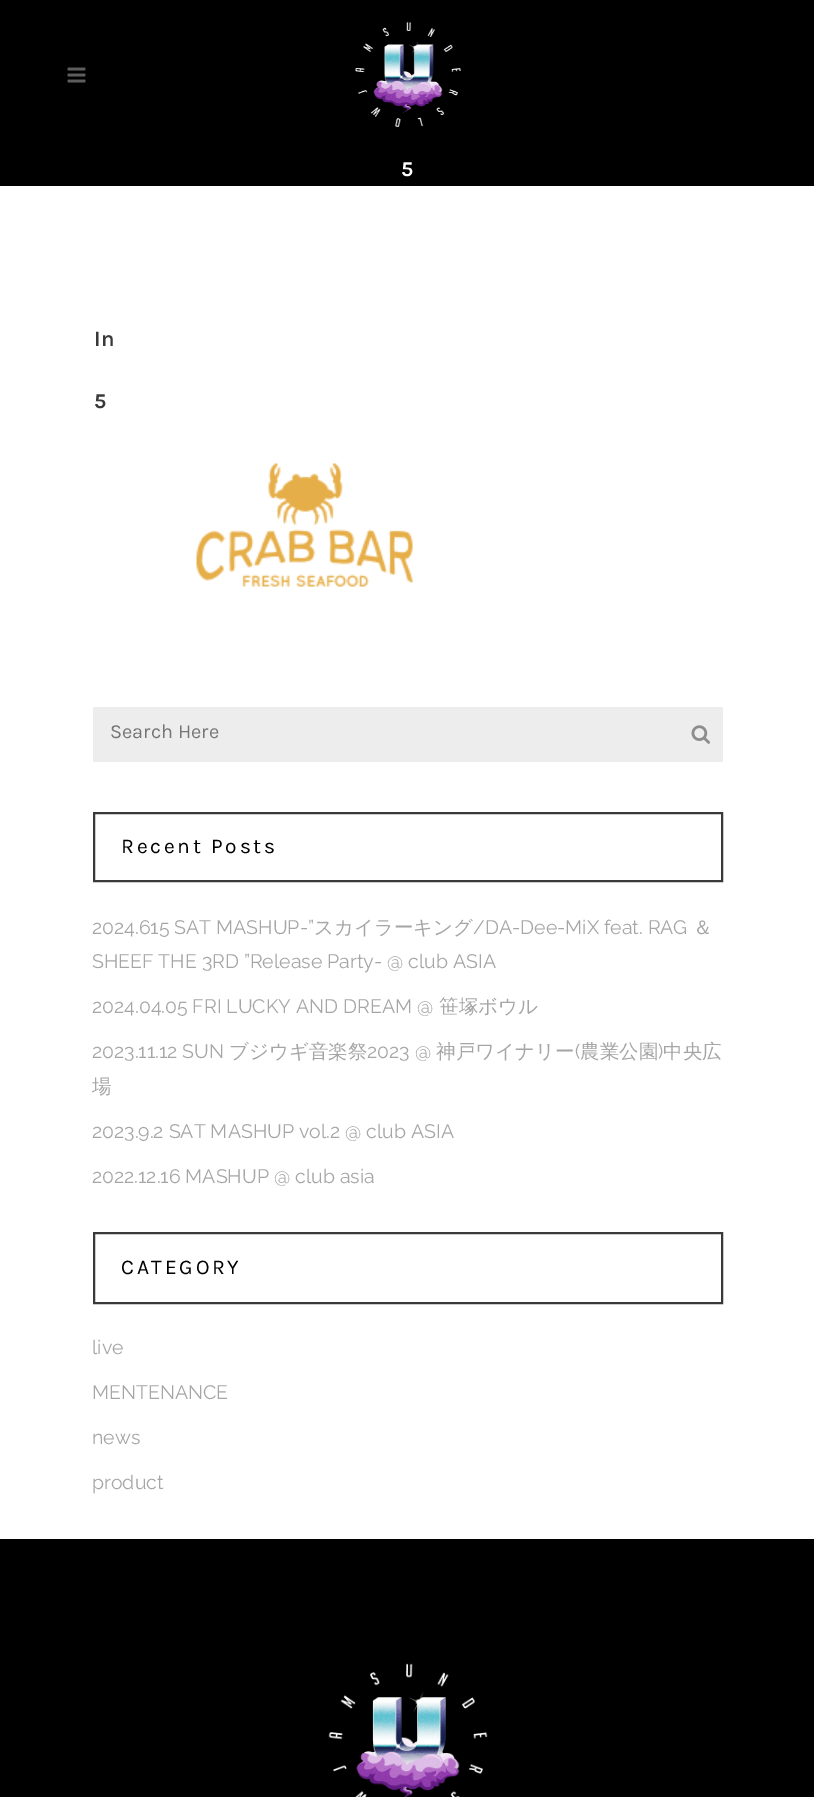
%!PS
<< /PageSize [814 1797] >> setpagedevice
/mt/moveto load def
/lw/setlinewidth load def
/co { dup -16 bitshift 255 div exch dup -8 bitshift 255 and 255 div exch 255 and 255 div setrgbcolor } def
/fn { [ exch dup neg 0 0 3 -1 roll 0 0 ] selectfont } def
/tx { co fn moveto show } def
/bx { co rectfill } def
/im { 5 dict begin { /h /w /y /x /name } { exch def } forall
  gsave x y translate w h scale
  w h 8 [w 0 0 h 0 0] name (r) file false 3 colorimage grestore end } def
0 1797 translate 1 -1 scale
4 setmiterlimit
0 0 814 1797 16#FFFFFF bx
0 0 814 186 16#000000 bx
(media/1.raw) 67 67 19 16 im
(media/2.raw) 355 22 106 105 im
(media/3.raw) 196 463 217 124 im
93 707 630 55 16#EDEDED bx
(media/4.raw) 691 725 19 19 im
16#393939 co
2 lw
94 813 628 68 rectstroke
94 1233 628 70 rectstroke
0 1539 814 258 16#000000 bx
(media/5.raw) 328 1663 160 134 im
(5) 401 176 /Karla-Bold 21 16#FFFFFF tx
(In) 94 346 /Karla-SemiBold 22 16#393939 tx
(5) 94 408 /Karla-Bold 21 16#393939 tx
(Search Here) 110 738 /Karla-Regular 20 16#757575 tx
/Karla-Regular 21 fn
16#000000 co
121 853 mt 2.75 0 (Recent Posts) ashow
(2024.615 SAT MASHUP-”) 92 934 /Raleway-Regular 19.5 16#A6A6A6 tx
(スカイラーキング) 314 934 /WenQuanYiZenHei-Medium 19.5 16#A6A6A6 tx
(/DA-Dee-MiX feat. RAG) 473 934 /Raleway-Regular 19.5 16#A6A6A6 tx
(＆) 693 934 /WenQuanYiZenHei-Medium 19.5 16#A6A6A6 tx
(SHEEF THE 3RD ”Release Party- @ club ASIA) 92 968 /Raleway-Regular 19.5 16#A6A6A6 tx
(2024.04.05 FRI LUCKY AND DREAM @) 92 1013 /Raleway-Regular 19.5 16#A6A6A6 tx
(笹塚ボウル) 439 1013 /WenQuanYiZenHei-Medium 19.5 16#A6A6A6 tx
(2023.11.12 SUN) 92 1058 /Raleway-Regular 19.5 16#A6A6A6 tx
(ブジウギ音楽祭) 229 1058 /WenQuanYiZenHei-Medium 19.5 16#A6A6A6 tx
(2023 @) 367 1058 /Raleway-Regular 19.5 16#A6A6A6 tx
(神戸ワイナリー) 436 1058 /WenQuanYiZenHei-Medium 19.5 16#A6A6A6 tx
(\() 575 1058 /Raleway-Regular 19.5 16#A6A6A6 tx
(農業公園) 580 1058 /WenQuanYiZenHei-Medium 19.5 16#A6A6A6 tx
(\)) 658 1058 /Raleway-Regular 19.5 16#A6A6A6 tx
(中央広) 663 1058 /WenQuanYiZenHei-Medium 19.5 16#A6A6A6 tx
(場) 92 1093 /WenQuanYiZenHei-Medium 19.5 16#A6A6A6 tx
(2023.9.2 SAT MASHUP vol.2 @ club ASIA) 92 1138 /Raleway-Regular 19.5 16#A6A6A6 tx
(2022.12.16 MASHUP @ club asia) 92 1183 /Raleway-Regular 19.5 16#A6A6A6 tx
/Karla-Regular 21 fn
16#000000 co
121 1274 mt 2.75 0 (CATEGORY) ashow
(live) 92 1354 /Raleway-Regular 19.5 16#A6A6A6 tx
(MENTENANCE) 92 1399 /Raleway-Regular 19.5 16#A6A6A6 tx
(news) 92 1444 /Raleway-Regular 19.5 16#A6A6A6 tx
(product) 92 1489 /Raleway-Regular 19.5 16#A6A6A6 tx
showpage
